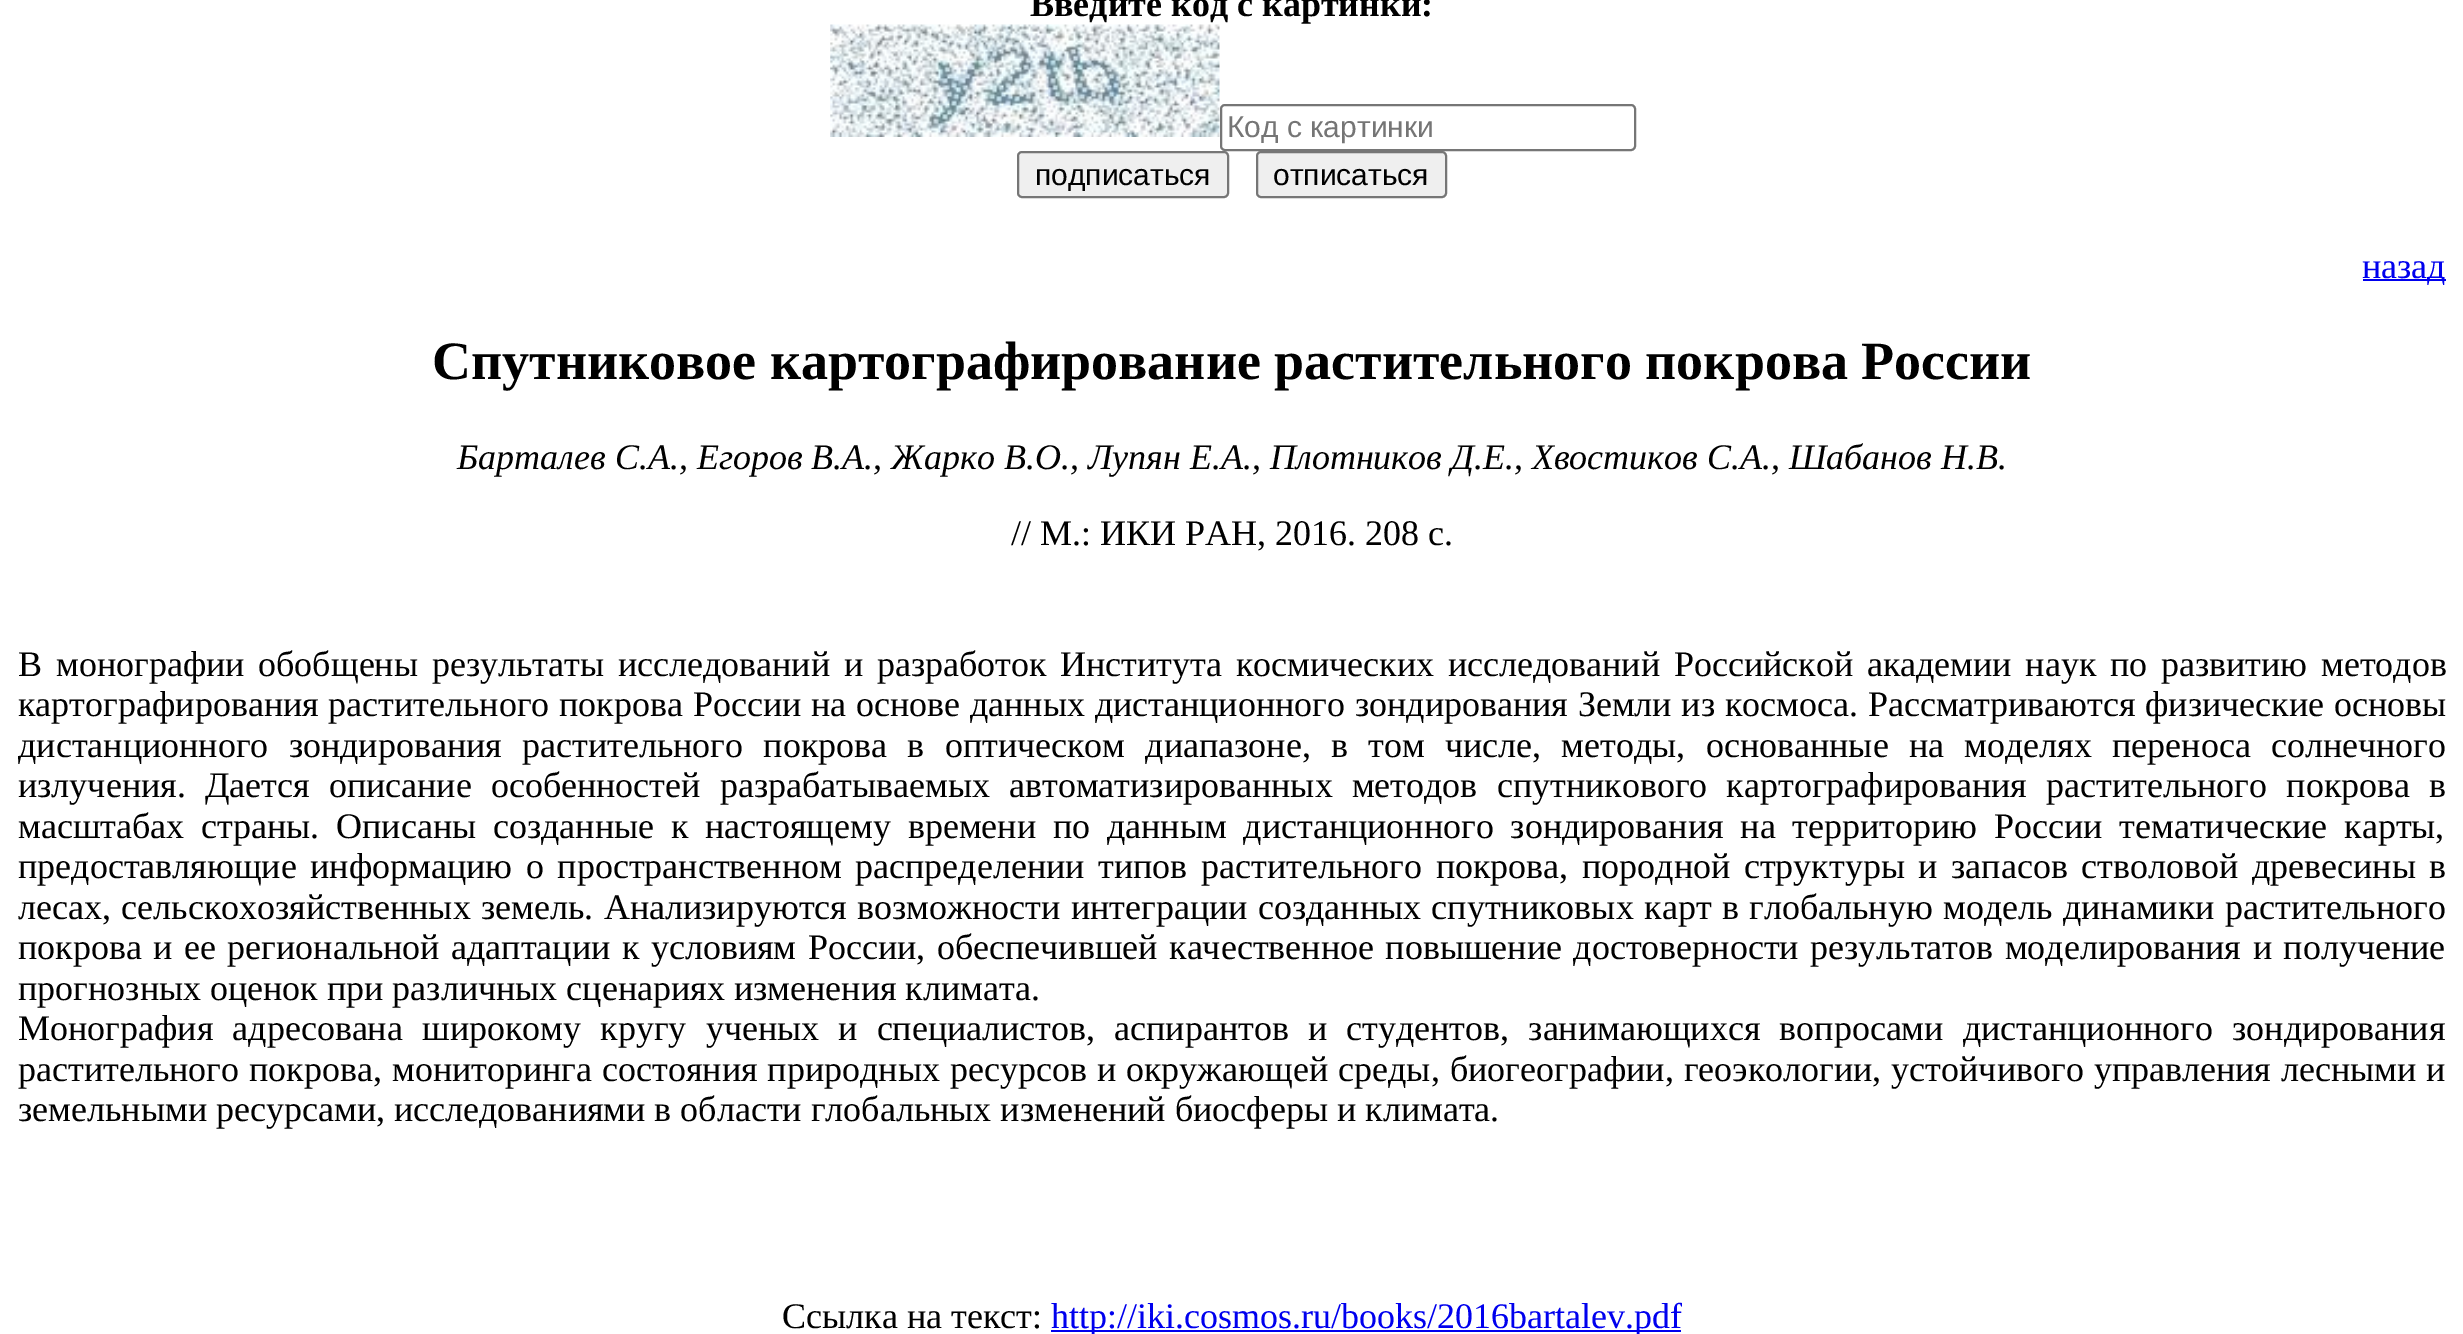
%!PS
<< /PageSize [2463 1334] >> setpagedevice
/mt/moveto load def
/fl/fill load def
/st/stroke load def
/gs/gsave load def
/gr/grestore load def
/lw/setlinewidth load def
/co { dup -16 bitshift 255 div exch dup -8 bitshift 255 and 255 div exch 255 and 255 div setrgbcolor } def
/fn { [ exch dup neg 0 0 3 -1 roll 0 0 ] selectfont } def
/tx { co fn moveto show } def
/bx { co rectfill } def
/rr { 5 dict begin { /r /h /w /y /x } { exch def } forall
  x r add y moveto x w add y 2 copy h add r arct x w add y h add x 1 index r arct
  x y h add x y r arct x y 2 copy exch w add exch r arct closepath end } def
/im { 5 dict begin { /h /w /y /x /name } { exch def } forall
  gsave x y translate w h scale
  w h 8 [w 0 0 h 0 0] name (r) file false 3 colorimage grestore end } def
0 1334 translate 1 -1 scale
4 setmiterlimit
0 0 2463 1334 16#FFFFFF bx
(media/1.raw) 830 24 390 113 im
16#767676 co
2 lw
1221 105 414 45 4 rr st
16#EFEFEF co
1018 152 210 45 4 rr gs fl gr
16#767676 co
st
16#EFEFEF co
1257 152 189 45 4 rr gs fl gr
16#767676 co
st
2363 279 83 2 16#0000EE bx
1051 1330 630 2 16#0000EE bx
(Введите код с картинки:) 1030 16 /LiberationSerif-Bold 36 16#000000 tx
(Код с картинки) 1227 137 /LiberationSans-Regular 30 16#757575 tx
(подписаться) 1035 185 /LiberationSans-Regular 30 16#000000 tx
(отписаться) 1273 185 /LiberationSans-Regular 30 16#000000 tx
(назад) 2362 278 /LiberationSerif-Regular 36 16#0000EE tx
(Спутниковое картографирование растительного покрова России) 432 379 /LiberationSerif-Bold 54 16#000000 tx
(Барталев С.А., Егоров В.А., Жарко В.О., Лупян Е.А., Плотников Д.Е., Хвостиков С.А., Шабанов Н.В.) 457 469 /LiberationSerif-Italic 36 16#000000 tx
(// М.: ИКИ РАН, 2016. 208 c.) 1011 545 /LiberationSerif-Regular 36 16#000000 tx
18 676 mt 4.75 0 32 (В монографии обобщены результаты исследований и разработок Института космических исследований Российской академии наук по развитию методов) widthshow
18 716 mt .75 0 32 (картографирования растительного покрова России на основе данных дистанционного зондирования Земли из космоса. Рассматриваются физические основы) widthshow
18 757 mt 11.25 0 32 (дистанционного зондирования растительного покрова в оптическом диапазоне, в том числе, методы, основанные на моделях переноса солнечного) widthshow
18 797 mt 10.1 0 32 (излучения. Дается описание особенностей разрабатываемых автоматизированных методов спутникового картографирования растительного покрова в) widthshow
18 838 mt 7.75 0 32 (масштабах страны. Описаны созданные к настоящему времени по данным дистанционного зондирования на территорию России тематические карты,) widthshow
18 878 mt 4.6 0 32 (предоставляющие информацию о пространственном распределении типов растительного покрова, породной структуры и запасов стволовой древесины в) widthshow
18 919 mt 1.4 0 32 (лесах, сельскохозяйственных земель. Анализируются возможности интеграции созданных спутниковых карт в глобальную модель динамики растительного) widthshow
18 959 mt 2.5 0 32 (покрова и ее региональной адаптации к условиям России, обеспечившей качественное повышение достоверности результатов моделирования и получение) widthshow
(прогнозных оценок при различных сценариях изменения климата.) 18 1000 /LiberationSerif-Regular 36 16#000000 tx
18 1040 mt 10.1 0 32 (Монография адресована широкому кругу ученых и специалистов, аспирантов и студентов, занимающихся вопросами дистанционного зондирования) widthshow
18 1081 mt 1 0 32 (растительного покрова, мониторинга состояния природных ресурсов и окружающей среды, биогеографии, геоэкологии, устойчивого управления лесными и) widthshow
(земельными ресурсами, исследованиями в области глобальных изменений биосферы и климата.) 18 1121 /LiberationSerif-Regular 36 16#000000 tx
(Ссылка на текст:) 782 1328 /LiberationSerif-Regular 36 16#000000 tx
(http://iki.cosmos.ru/books/2016bartalev.pdf) 1051 1328 /LiberationSerif-Regular 36 16#0000EE tx
showpage
